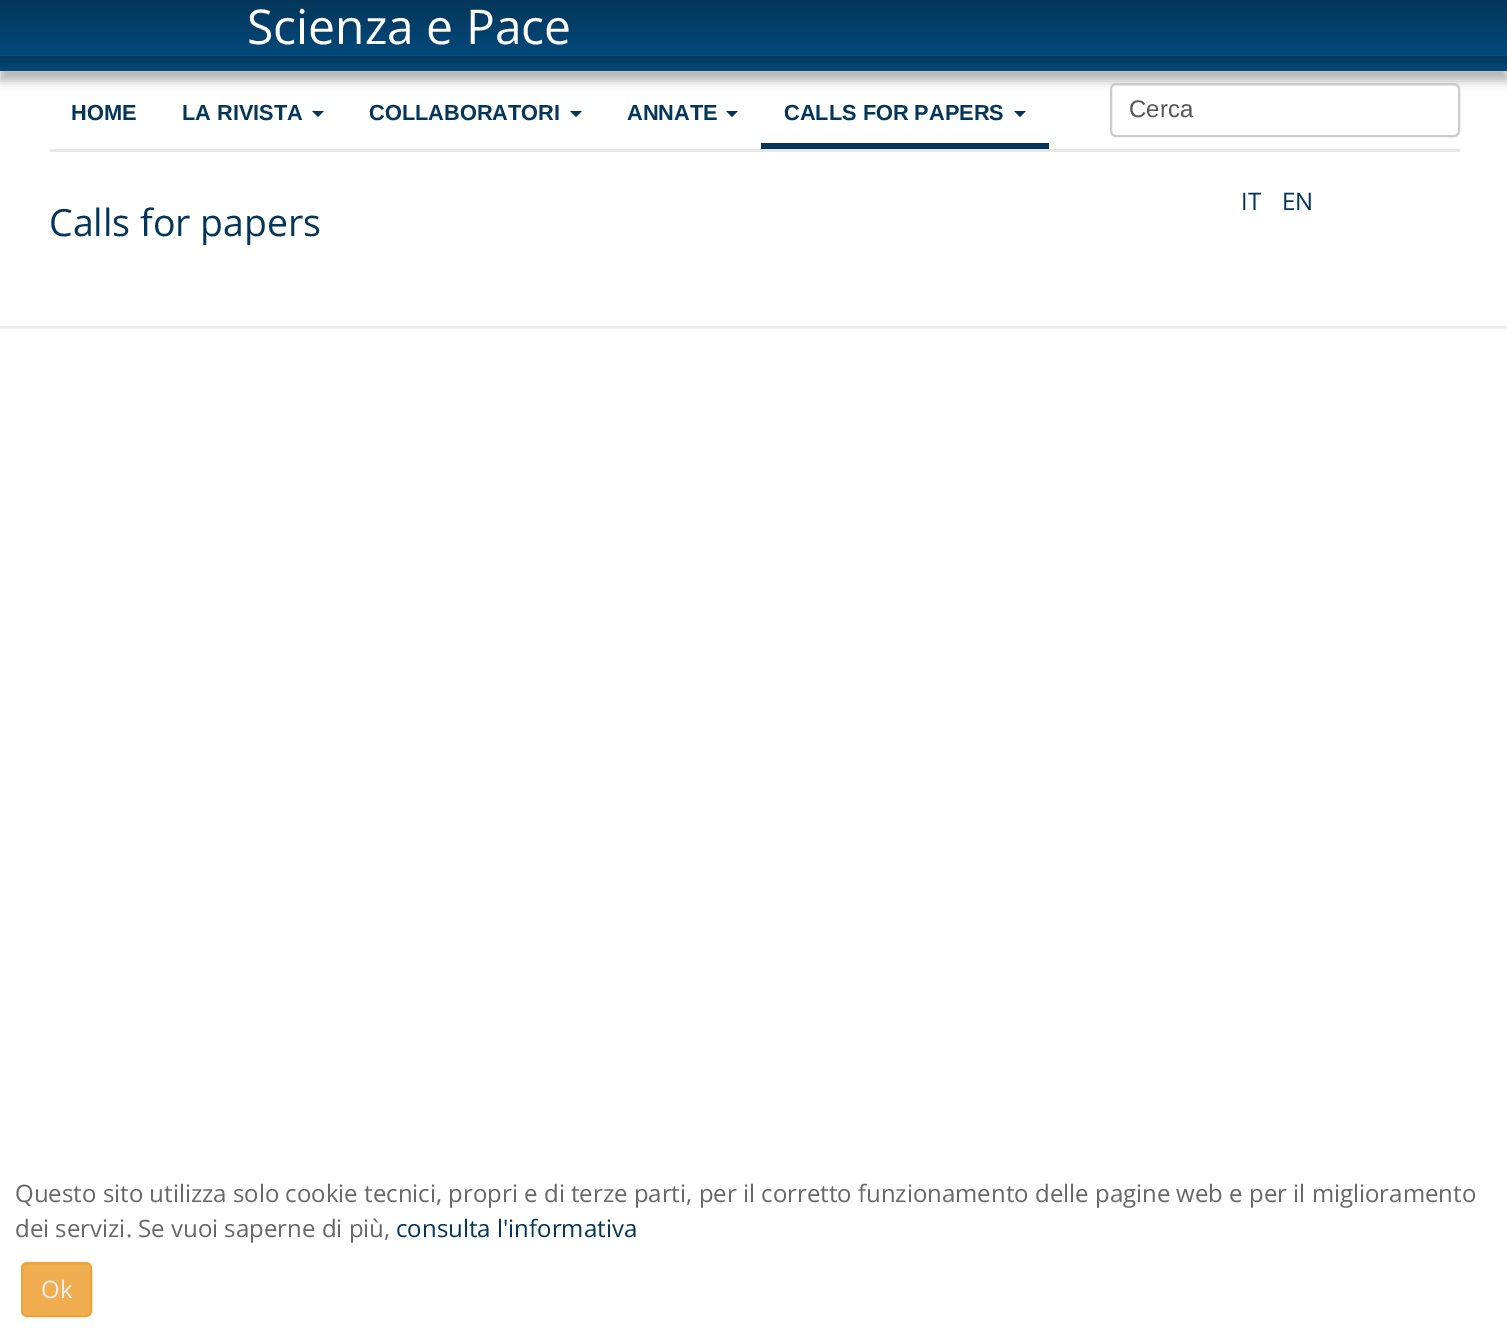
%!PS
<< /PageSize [1507 1341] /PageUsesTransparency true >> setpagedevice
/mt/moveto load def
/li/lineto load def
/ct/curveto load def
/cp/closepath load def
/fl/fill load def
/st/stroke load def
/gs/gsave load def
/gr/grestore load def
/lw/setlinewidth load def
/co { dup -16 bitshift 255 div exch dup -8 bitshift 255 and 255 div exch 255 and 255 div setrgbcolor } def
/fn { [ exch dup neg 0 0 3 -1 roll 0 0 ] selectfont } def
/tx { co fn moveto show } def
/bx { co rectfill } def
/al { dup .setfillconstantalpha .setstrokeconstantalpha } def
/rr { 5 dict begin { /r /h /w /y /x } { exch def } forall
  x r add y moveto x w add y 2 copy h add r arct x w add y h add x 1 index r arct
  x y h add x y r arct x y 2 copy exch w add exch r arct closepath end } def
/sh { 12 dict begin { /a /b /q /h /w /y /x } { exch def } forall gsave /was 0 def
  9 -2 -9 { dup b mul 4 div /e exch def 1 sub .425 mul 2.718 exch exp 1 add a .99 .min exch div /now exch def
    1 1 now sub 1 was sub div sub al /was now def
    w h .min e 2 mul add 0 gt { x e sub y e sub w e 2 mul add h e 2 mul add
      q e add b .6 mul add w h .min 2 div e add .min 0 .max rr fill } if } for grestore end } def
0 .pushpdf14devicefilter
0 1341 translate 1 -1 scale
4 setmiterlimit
0 0 1507 1341 16#FFFFFF bx
gs 0 0 mt 1507 0 li 1507 56 li 0 56 li cp clip newpath
<< /ShadingType 2 /ColorSpace /DeviceRGB /Coords [754 0 754 56] /Extend [true true] /Function << /FunctionType 2 /Domain [0 1] /C0 [.016 .212 .349] /C1 [.012 .286 .486] /N 1 >> >> shfill gr
16#B3B3B3 co
0 66 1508 15 0 5 1 sh
gs 0 56 mt 1507 56 li 1507 71 li 0 71 li cp clip newpath
<< /ShadingType 2 /ColorSpace /DeviceRGB /Coords [754 55 754 71] /Extend [true true] /Function << /FunctionType 2 /Domain [0 1] /C0 [.016 .212 .349] /C1 [.012 .286 .486] /N 1 >> >> shfill gr
50 149 1410 3 16#E7E7E7 bx
16#043659 co
312 111 mt 324 111 li 318 117 li cp fl
570 111 mt 582 111 li 576 117 li cp fl
726 111 mt 738 111 li 732 117 li cp fl
761 143 288 6 16#043659 bx
1014 111 mt 1026 111 li 1020 117 li cp fl
16#FFFFFF co
1110 83 350 54 6 rr fl
16#ECECEC co
1116 86 mt 1454 86 li 1456 86 1458 88 1458 90 ct 1458 87 1456 84 1453 84 ct 1117 84 li 1114 84 1112 87 1112 90 ct 1112 88 1114 86 1116 86 ct cp fl
16#CCCCCC co
2 lw
1111 84 348 52 5 rr st
0 326 1507 3 16#EEEEEE bx
16#F0AE50 co
22 1263 69 53 5 rr gs fl gr
16#EEA338 co
st
(Scienza e Pace) 247 44 /OpenSans-Regular 48 16#FFFFFF tx
(HOME) 71 120 /LiberationSans-Bold 21.75 16#043659 tx
(LA RIVISTA) 182 120 /LiberationSans-Bold 21.75 16#043659 tx
(COLLABORATORI) 369 120 /LiberationSans-Bold 21.75 16#043659 tx
(ANNATE) 627 120 /LiberationSans-Bold 21.75 16#043659 tx
(CALLS FOR PAPERS) 784 120 /LiberationSans-Bold 21.75 16#043659 tx
(Cerca) 1129 117 /LiberationSans-Regular 24 16#555555 tx
(IT) 1241 210 /OpenSans-Regular 24 16#043659 tx
(EN) 1282 210 /OpenSans-Regular 24 16#043659 tx
(Calls for papers) 49 236 /OpenSans-Regular 37.5 16#043659 tx
(Questo sito utilizza solo cookie tecnici, propri e di terze parti, per il corretto funzionamento delle pagine web e per il miglioramento) 15 1202 /OpenSans-Regular 24 16#686868 tx
(dei servizi. Se vuoi saperne di più,) 15 1237 /OpenSans-Regular 24 16#686868 tx
(consulta l'informativa) 396 1237 /OpenSans-Regular 24 16#043659 tx
(Ok) 41 1298 /OpenSans-Regular 24 16#EEEEEE tx
.poppdf14devicefilter showpage
